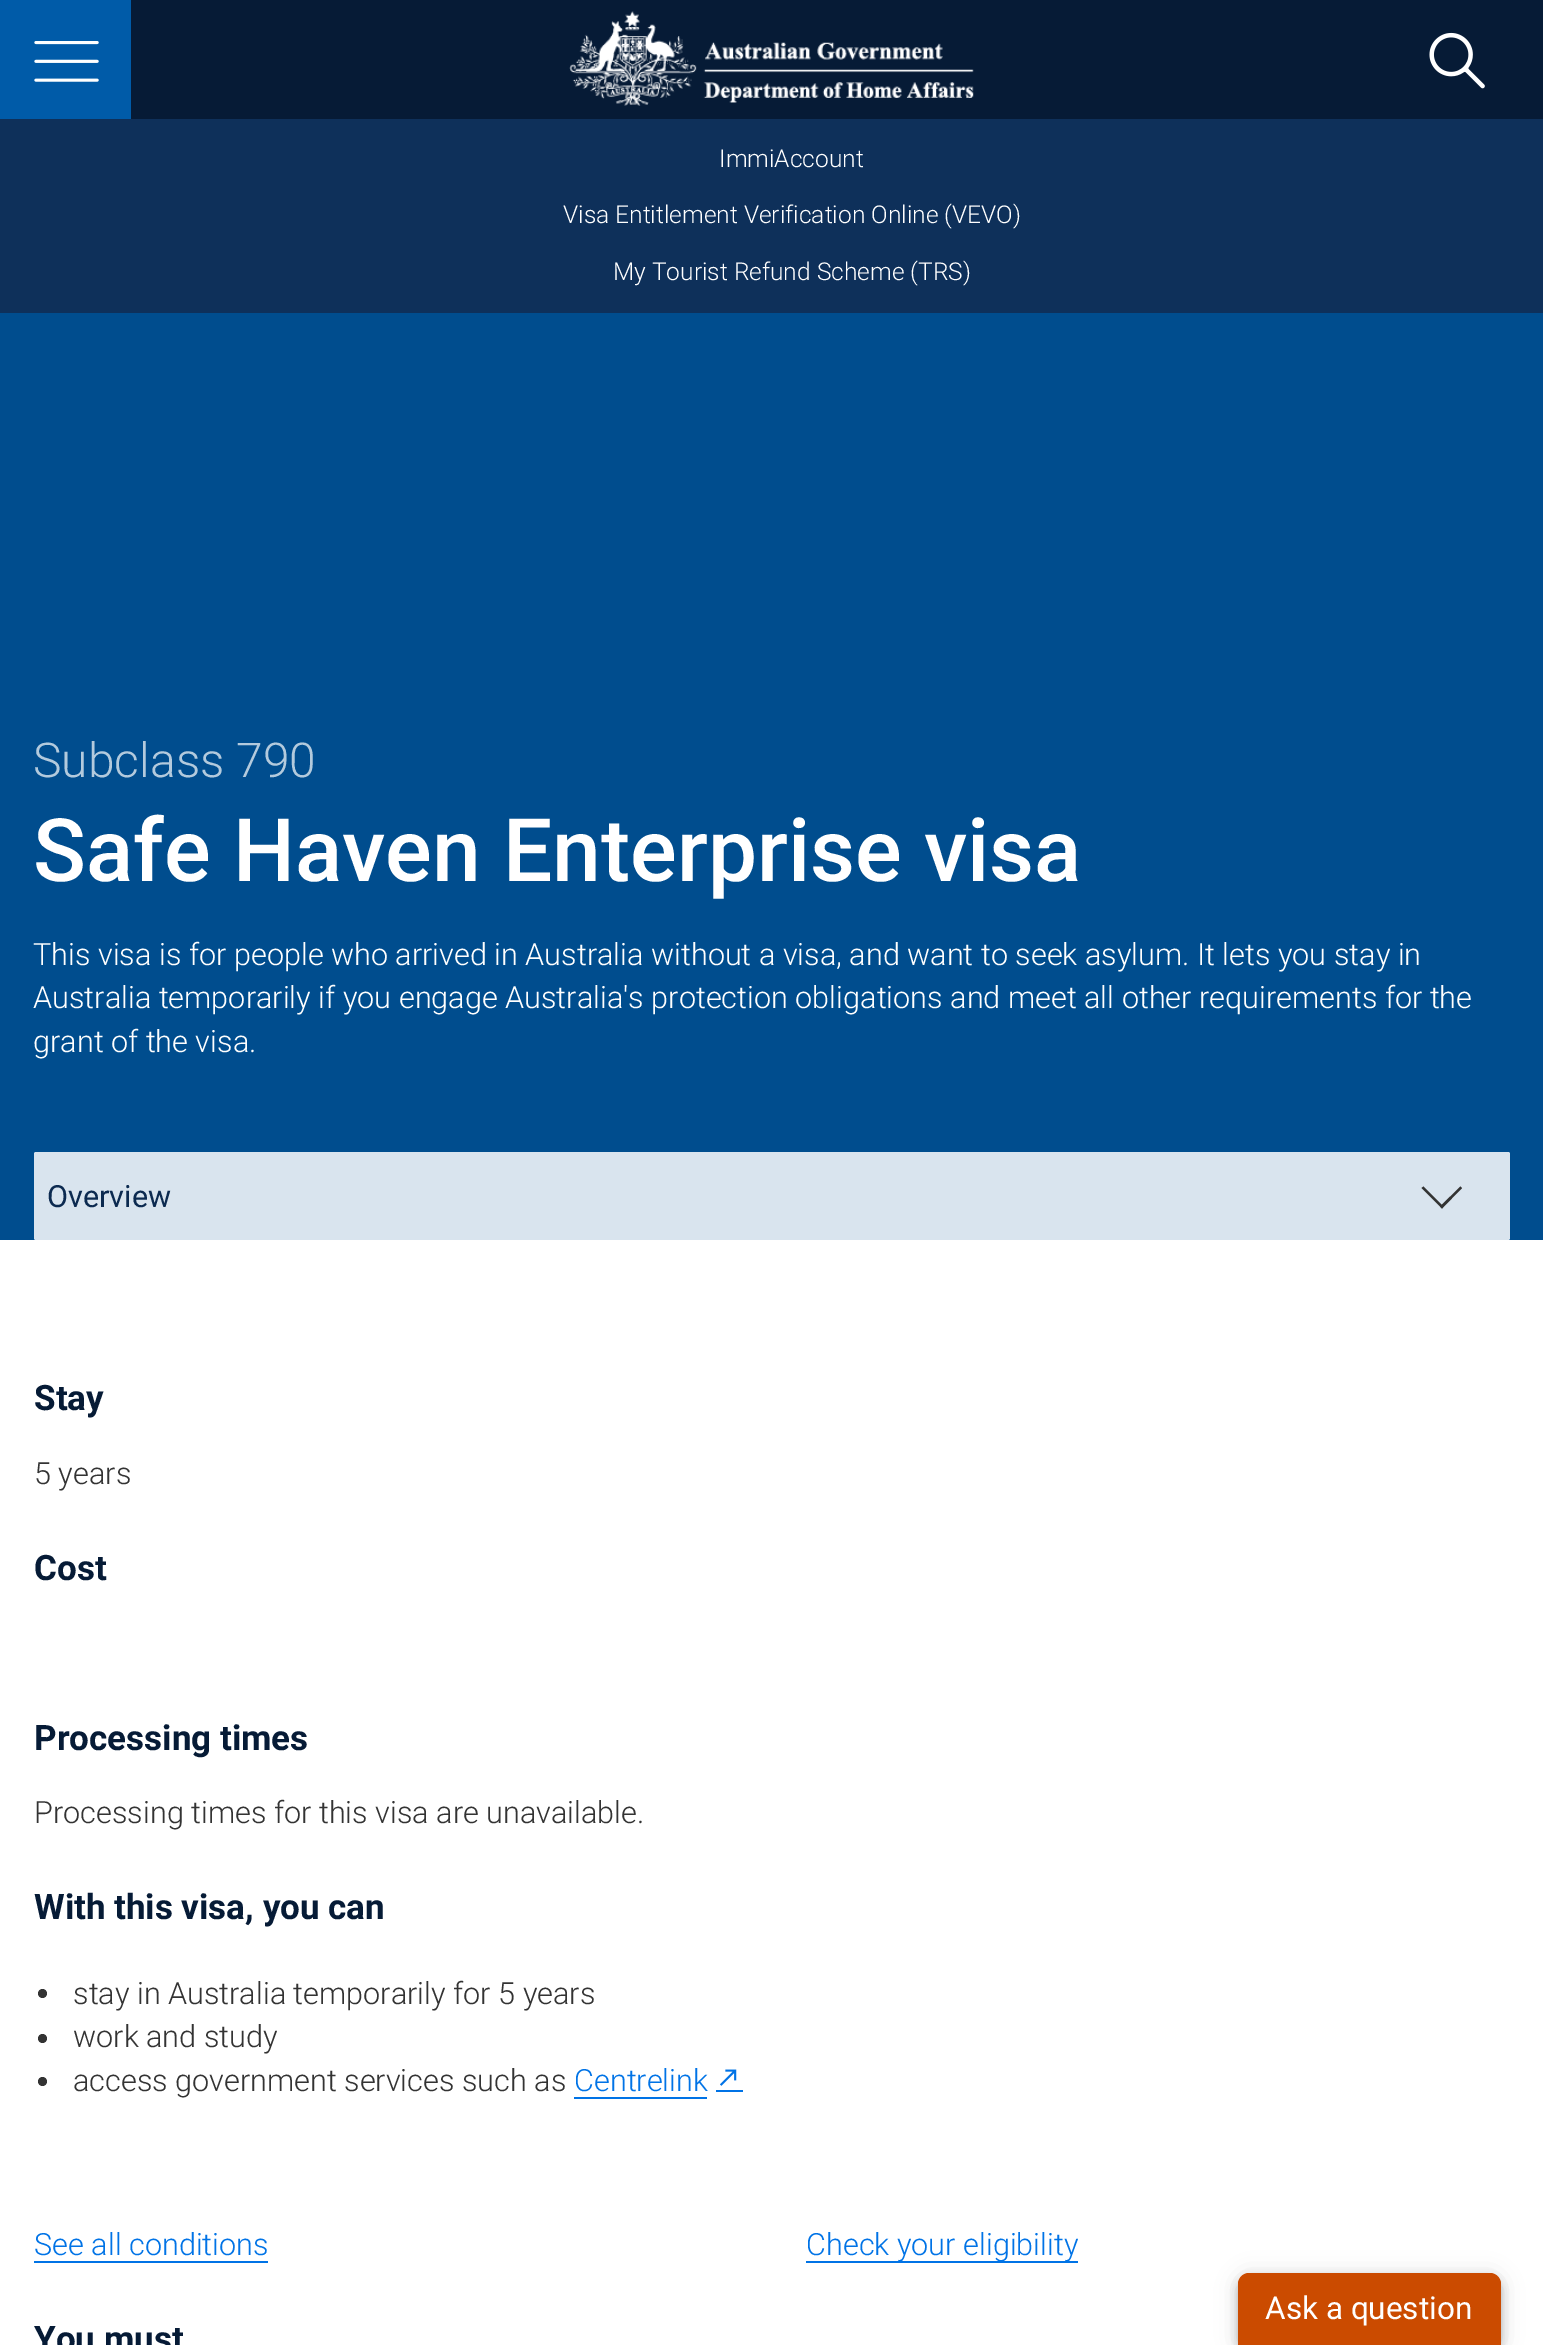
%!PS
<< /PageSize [1543 2345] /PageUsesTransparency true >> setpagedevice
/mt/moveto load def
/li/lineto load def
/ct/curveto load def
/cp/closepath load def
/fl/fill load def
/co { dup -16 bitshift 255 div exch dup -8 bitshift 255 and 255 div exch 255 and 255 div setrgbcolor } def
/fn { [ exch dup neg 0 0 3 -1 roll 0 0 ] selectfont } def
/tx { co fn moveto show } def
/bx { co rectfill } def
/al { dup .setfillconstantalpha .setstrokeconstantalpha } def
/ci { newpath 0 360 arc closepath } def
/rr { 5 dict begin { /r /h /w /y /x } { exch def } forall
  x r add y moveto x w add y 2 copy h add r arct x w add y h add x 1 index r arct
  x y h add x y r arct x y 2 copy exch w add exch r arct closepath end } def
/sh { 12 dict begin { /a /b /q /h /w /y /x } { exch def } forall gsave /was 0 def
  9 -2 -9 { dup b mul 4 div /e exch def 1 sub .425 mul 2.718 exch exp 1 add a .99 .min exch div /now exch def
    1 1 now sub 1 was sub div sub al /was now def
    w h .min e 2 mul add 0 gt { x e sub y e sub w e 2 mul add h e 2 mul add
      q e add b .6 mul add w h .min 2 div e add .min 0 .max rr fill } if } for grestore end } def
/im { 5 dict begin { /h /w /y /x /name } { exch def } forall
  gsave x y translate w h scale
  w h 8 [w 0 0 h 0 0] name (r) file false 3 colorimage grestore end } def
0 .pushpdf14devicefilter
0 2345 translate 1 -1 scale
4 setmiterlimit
0 0 1543 2345 16#004D8E bx
131 0 1412 119 16#061B36 bx
0 0 131 119 16#005BA8 bx
(media/1.raw) 34 41 65 41 im
(media/2.raw) 569 11 405 95 im
(media/3.raw) 1429 32 56 57 im
0 119 1543 194 16#0E305A bx
16#D9E4EE co
34 1152 1476 88 2 rr fl
16#333333 co
1460.5 1186.5 mt 1462 1188 li 1442 1208.5 li 1440 1206.5 li cp fl
1423.5 1186.5 mt 1443.5 1206.5 li 1442 1208.5 li 1421.5 1188 li cp fl
0 1240 1543 1105 16#FFFFFF bx
16#333333 co
42.5 1993.5 4.5 ci fl
42.5 2038.5 4.5 ci fl
42.5 2081.5 4.5 ci fl
574 2097 133 2 16#0073E6 bx
716 2090 27 2 16#0073E6 bx
(media/4.raw) 720 2069 17 17 im
34 2261 234 2 16#0073E6 bx
806 2261 272 2 16#0073E6 bx
16#000000 co
1240 2279 259 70 9 4.5 .2 sh
1238 2275 263 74 11 11 .12 sh
1238 2282 263 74 11 5.5 .14 sh
16#CB4B00 co
1249 2273 mt 1490 2273 li 1496 2273 1501 2278 1501 2284 ct 1501 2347 li 1238 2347 li 1238 2284 li 1238 2278 1243 2273 1249 2273 ct cp fl
(ImmiAccount) 719 167 /Roboto-Light 24.5 16#FFFFFF tx
(Visa Entitlement Verification Online \(VEVO\)) 563 223 /Roboto-Light 24.5 16#FFFFFF tx
(My Tourist Refund Scheme \(TRS\)) 613 280 /Roboto-Light 24.5 16#FFFFFF tx
(Subclass 790) 33 777 /Roboto-Light 48 16#B3CADD tx
(Safe Haven Enterprise visa) 33 881 /Roboto-Medium 87.5 16#FFFFFF tx
(This visa is for people who arrived in Australia without a visa, and want to seek asylum. It lets you stay in) 33 965 /Roboto-Light 30.6 16#FFFFFF tx
(Australia temporarily if you engage Australia's protection obligations and meet all other requirements for the) 33 1008 /Roboto-Light 30.6 16#FFFFFF tx
(grant of the visa.) 33 1052 /Roboto-Light 30.6 16#FFFFFF tx
(Overview) 47 1207 /Roboto-Regular 30.6 16#0C2A50 tx
(Stay) 34 1410 /Roboto-Bold 35 16#061B36 tx
(5 years) 34 1484 /Roboto-Light 30.6 16#333333 tx
(Cost) 34 1580 /Roboto-Bold 35 16#061B36 tx
(Processing times) 34 1750 /Roboto-Bold 35 16#061B36 tx
(Processing times for this visa are unavailable.) 34 1823 /Roboto-Light 30.6 16#333333 tx
(With this visa, you can) 34 1919 /Roboto-Bold 35 16#061B36 tx
(stay in Australia temporarily for 5 years) 73 2004 /Roboto-Light 30.6 16#333333 tx
(work and study) 73 2047 /Roboto-Light 30.6 16#333333 tx
(access government services such as) 73 2091 /Roboto-Light 30.6 16#333333 tx
(Centrelink) 574 2091 /Roboto-Light 30.6 16#0073E6 tx
(See all conditions) 34 2255 /Roboto-Light 30.6 16#0073E6 tx
(Check your eligibility) 806 2255 /Roboto-Light 30.6 16#0073E6 tx
(You must) 34 2351 /Roboto-Bold 35 16#061B36 tx
(Ask a question) 1265 2319 /Roboto-Regular 31.5 16#FFFFFF tx
.poppdf14devicefilter showpage
